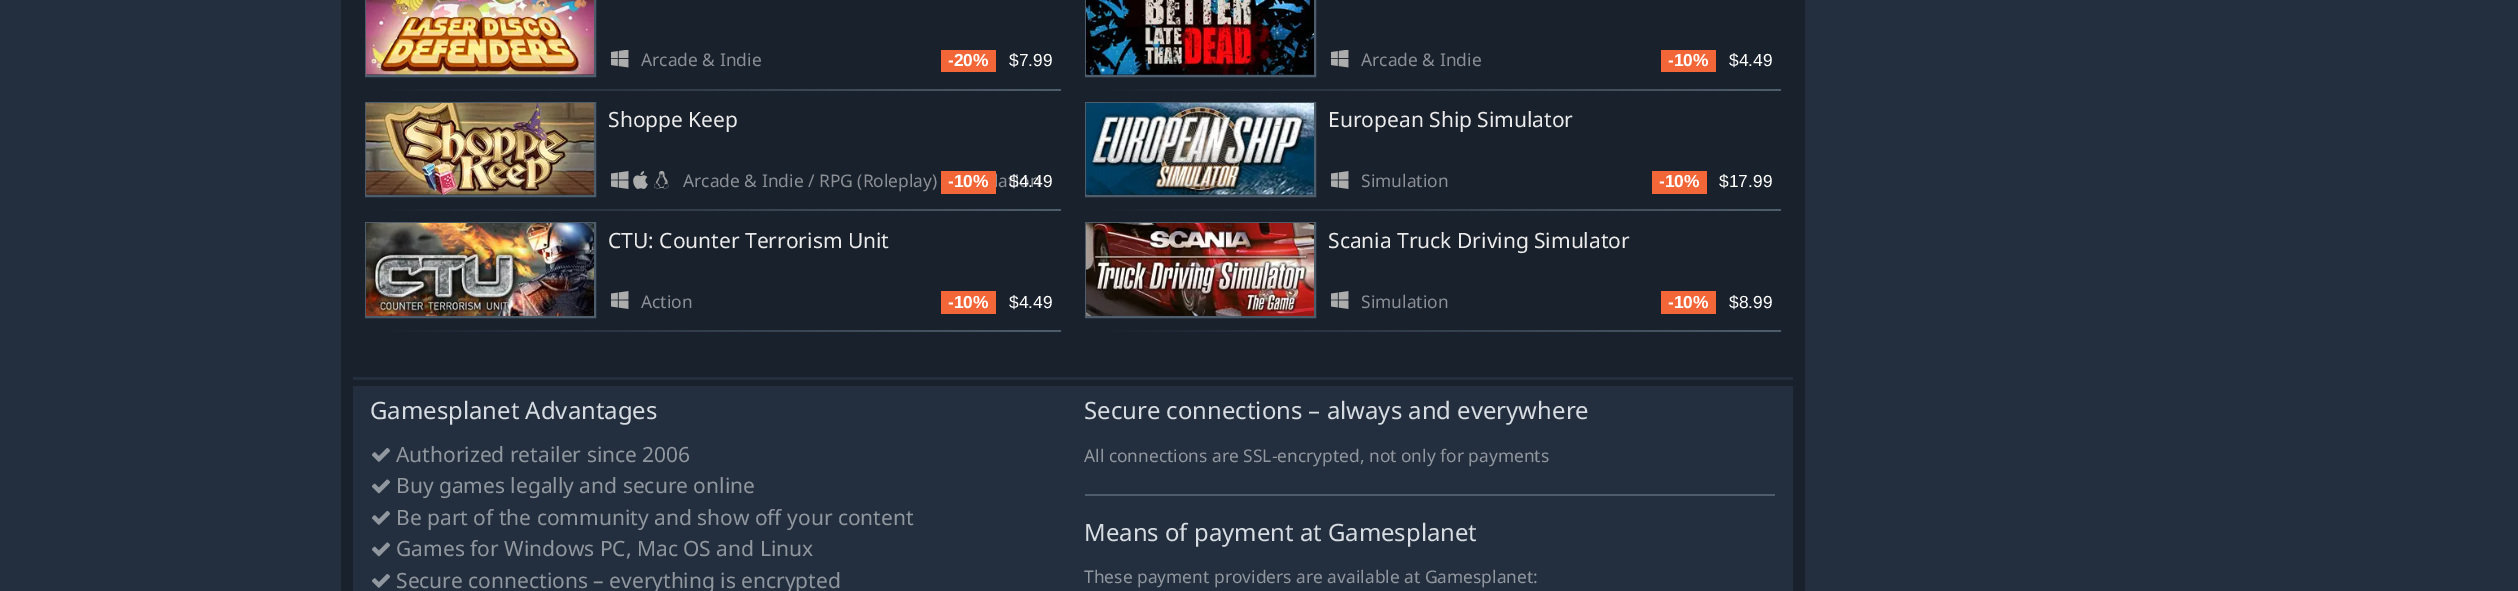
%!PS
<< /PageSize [2518 591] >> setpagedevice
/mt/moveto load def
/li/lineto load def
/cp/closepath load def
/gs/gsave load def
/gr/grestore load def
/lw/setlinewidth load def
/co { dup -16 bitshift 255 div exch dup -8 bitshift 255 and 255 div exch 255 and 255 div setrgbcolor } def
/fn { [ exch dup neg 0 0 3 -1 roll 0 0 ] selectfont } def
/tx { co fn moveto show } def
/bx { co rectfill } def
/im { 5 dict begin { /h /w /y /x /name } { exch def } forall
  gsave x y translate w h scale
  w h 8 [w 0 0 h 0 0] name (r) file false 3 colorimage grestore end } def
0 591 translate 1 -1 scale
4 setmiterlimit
0 0 2518 591 16#232F3E bx
341 0 1464 591 16#19212C bx
16#4E5D6C co
2 lw
366 -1 229 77 rectstroke
(media/1.raw) 366 0 228 75 im
(media/2.raw) 611 50 18 18 im
941 50 55 22 16#F26638 bx
gs 392 89 mt 1061 89 li 1061 91 li 392 91 li cp clip newpath
<< /ShadingType 2 /ColorSpace /DeviceRGB /Coords [1061 89 365 89] /Extend [true true] /Function << /FunctionType 2 /Domain [0 1] /C0 [.306 .365 .424] /C1 [.098 .129 .173] /N 1 >> >> shfill gr
16#4E5D6C co
366 103 229 93 rectstroke
(media/3.raw) 366 103 228 92 im
(media/4.raw) 611 171 18 18 im
(media/5.raw) 633 171 15 18 im
(media/6.raw) 654 171 15 18 im
gs 392 209 mt 1061 209 li 1061 211 li 392 211 li cp clip newpath
<< /ShadingType 2 /ColorSpace /DeviceRGB /Coords [1061 209 365 209] /Extend [true true] /Function << /FunctionType 2 /Domain [0 1] /C0 [.306 .365 .424] /C1 [.098 .129 .173] /N 1 >> >> shfill gr
366 223 229 94 rectstroke
(media/7.raw) 366 223 228 93 im
(media/4.raw) 611 291 18 18 im
941 291 55 23 16#F26638 bx
gs 392 330 mt 1061 330 li 1061 332 li 392 332 li cp clip newpath
<< /ShadingType 2 /ColorSpace /DeviceRGB /Coords [1061 331 365 331] /Extend [true true] /Function << /FunctionType 2 /Domain [0 1] /C0 [.306 .365 .424] /C1 [.098 .129 .173] /N 1 >> >> shfill gr
16#4E5D6C co
1086 -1 229 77 rectstroke
(media/8.raw) 1086 0 228 75 im
(media/2.raw) 1331 50 18 18 im
1661 50 55 22 16#F26638 bx
gs 1112 89 mt 1781 89 li 1781 91 li 1112 91 li cp clip newpath
<< /ShadingType 2 /ColorSpace /DeviceRGB /Coords [1781 89 1085 89] /Extend [true true] /Function << /FunctionType 2 /Domain [0 1] /C0 [.306 .365 .424] /C1 [.098 .129 .173] /N 1 >> >> shfill gr
16#4E5D6C co
1086 103 229 93 rectstroke
(media/9.raw) 1086 103 228 92 im
(media/4.raw) 1331 171 18 18 im
1652 171 55 23 16#F26638 bx
gs 1112 209 mt 1781 209 li 1781 211 li 1112 211 li cp clip newpath
<< /ShadingType 2 /ColorSpace /DeviceRGB /Coords [1781 209 1085 209] /Extend [true true] /Function << /FunctionType 2 /Domain [0 1] /C0 [.306 .365 .424] /C1 [.098 .129 .173] /N 1 >> >> shfill gr
16#4E5D6C co
1086 223 229 94 rectstroke
(media/10.raw) 1086 223 228 93 im
(media/4.raw) 1331 291 18 18 im
1661 291 55 23 16#F26638 bx
gs 1112 330 mt 1781 330 li 1781 332 li 1112 332 li cp clip newpath
<< /ShadingType 2 /ColorSpace /DeviceRGB /Coords [1781 331 1085 331] /Extend [true true] /Function << /FunctionType 2 /Domain [0 1] /C0 [.306 .365 .424] /C1 [.098 .129 .173] /N 1 >> >> shfill gr
353 377 1440 3 16#232F3E bx
353 386 1440 205 16#232F3E bx
(media/11.raw) 372 448 18 14 im
(media/12.raw) 372 479 18 15 im
(media/11.raw) 372 511 18 14 im
(media/12.raw) 372 542 18 15 im
(media/11.raw) 372 574 18 14 im
1085 494 690 2 16#4E5D6C bx
(Arcade & Indie) 641 66 /NotoSans-Regular 17.4 16#8C9096 tx
(-20%) 948 66 /LiberationSans-Bold 17.4 16#FFFFFF tx
($7.99) 1009 66 /LiberationSans-Regular 17.4 16#FFFFFF tx
(Shoppe Keep) 608 127 /NotoSans-Regular 21 16#EBEBEB tx
(Arcade & Indie / RPG \(Roleplay\)) 683 187 /NotoSans-Regular 17.4 16#8C9096 tx
(lation) 994 187 /NotoSans-Regular 17.4 16#8C9096 tx
941 171 55 23 16#F26638 bx
(-10%) 948 187 /LiberationSans-Bold 17.4 16#FFFFFF tx
($4.49) 1009 187 /LiberationSans-Regular 17.4 16#FFFFFF tx
(CTU: Counter Terrorism Unit) 608 248 /NotoSans-Regular 21 16#EBEBEB tx
(Action) 641 308 /NotoSans-Regular 17.4 16#8C9096 tx
(-10%) 948 308 /LiberationSans-Bold 17.4 16#FFFFFF tx
($4.49) 1009 308 /LiberationSans-Regular 17.4 16#FFFFFF tx
(Arcade & Indie) 1361 66 /NotoSans-Regular 17.4 16#8C9096 tx
(-10%) 1668 66 /LiberationSans-Bold 17.4 16#FFFFFF tx
($4.49) 1729 66 /LiberationSans-Regular 17.4 16#FFFFFF tx
(European Ship Simulator) 1328 127 /NotoSans-Regular 21 16#EBEBEB tx
(Simulation) 1361 187 /NotoSans-Regular 17.4 16#8C9096 tx
(-10%) 1659 187 /LiberationSans-Bold 17.4 16#FFFFFF tx
($17.99) 1719 187 /LiberationSans-Regular 17.4 16#FFFFFF tx
(Scania Truck Driving Simulator) 1328 248 /NotoSans-Regular 21 16#EBEBEB tx
(Simulation) 1361 308 /NotoSans-Regular 17.4 16#8C9096 tx
(-10%) 1668 308 /LiberationSans-Bold 17.4 16#FFFFFF tx
($8.99) 1729 308 /LiberationSans-Regular 17.4 16#FFFFFF tx
(Gamesplanet Advantages) 370 419 /NotoSans-Regular 23.9 16#D7DDE2 tx
(Authorized retailer since 2006) 396 462 /NotoSans-Regular 21 16#91979F tx
(Buy games legally and secure online) 396 493 /NotoSans-Regular 21 16#91979F tx
(Be part of the community and show off your content) 396 525 /NotoSans-Regular 21 16#91979F tx
(Games for Windows PC, Mac OS and Linux) 396 556 /NotoSans-Regular 21 16#91979F tx
(Secure connections – everything is encrypted) 396 588 /NotoSans-Regular 21 16#91979F tx
(Secure connections – always and everywhere) 1084 419 /NotoSans-Regular 23.9 16#D7DDE2 tx
(All connections are SSL-encrypted, not only for payments) 1084 462 /NotoSans-Regular 17.4 16#91979F tx
(Means of payment at Gamesplanet) 1084 541 /NotoSans-Regular 23.9 16#D7DDE2 tx
(These payment providers are available at Gamesplanet:) 1084 583 /NotoSans-Regular 17.4 16#91979F tx
showpage
